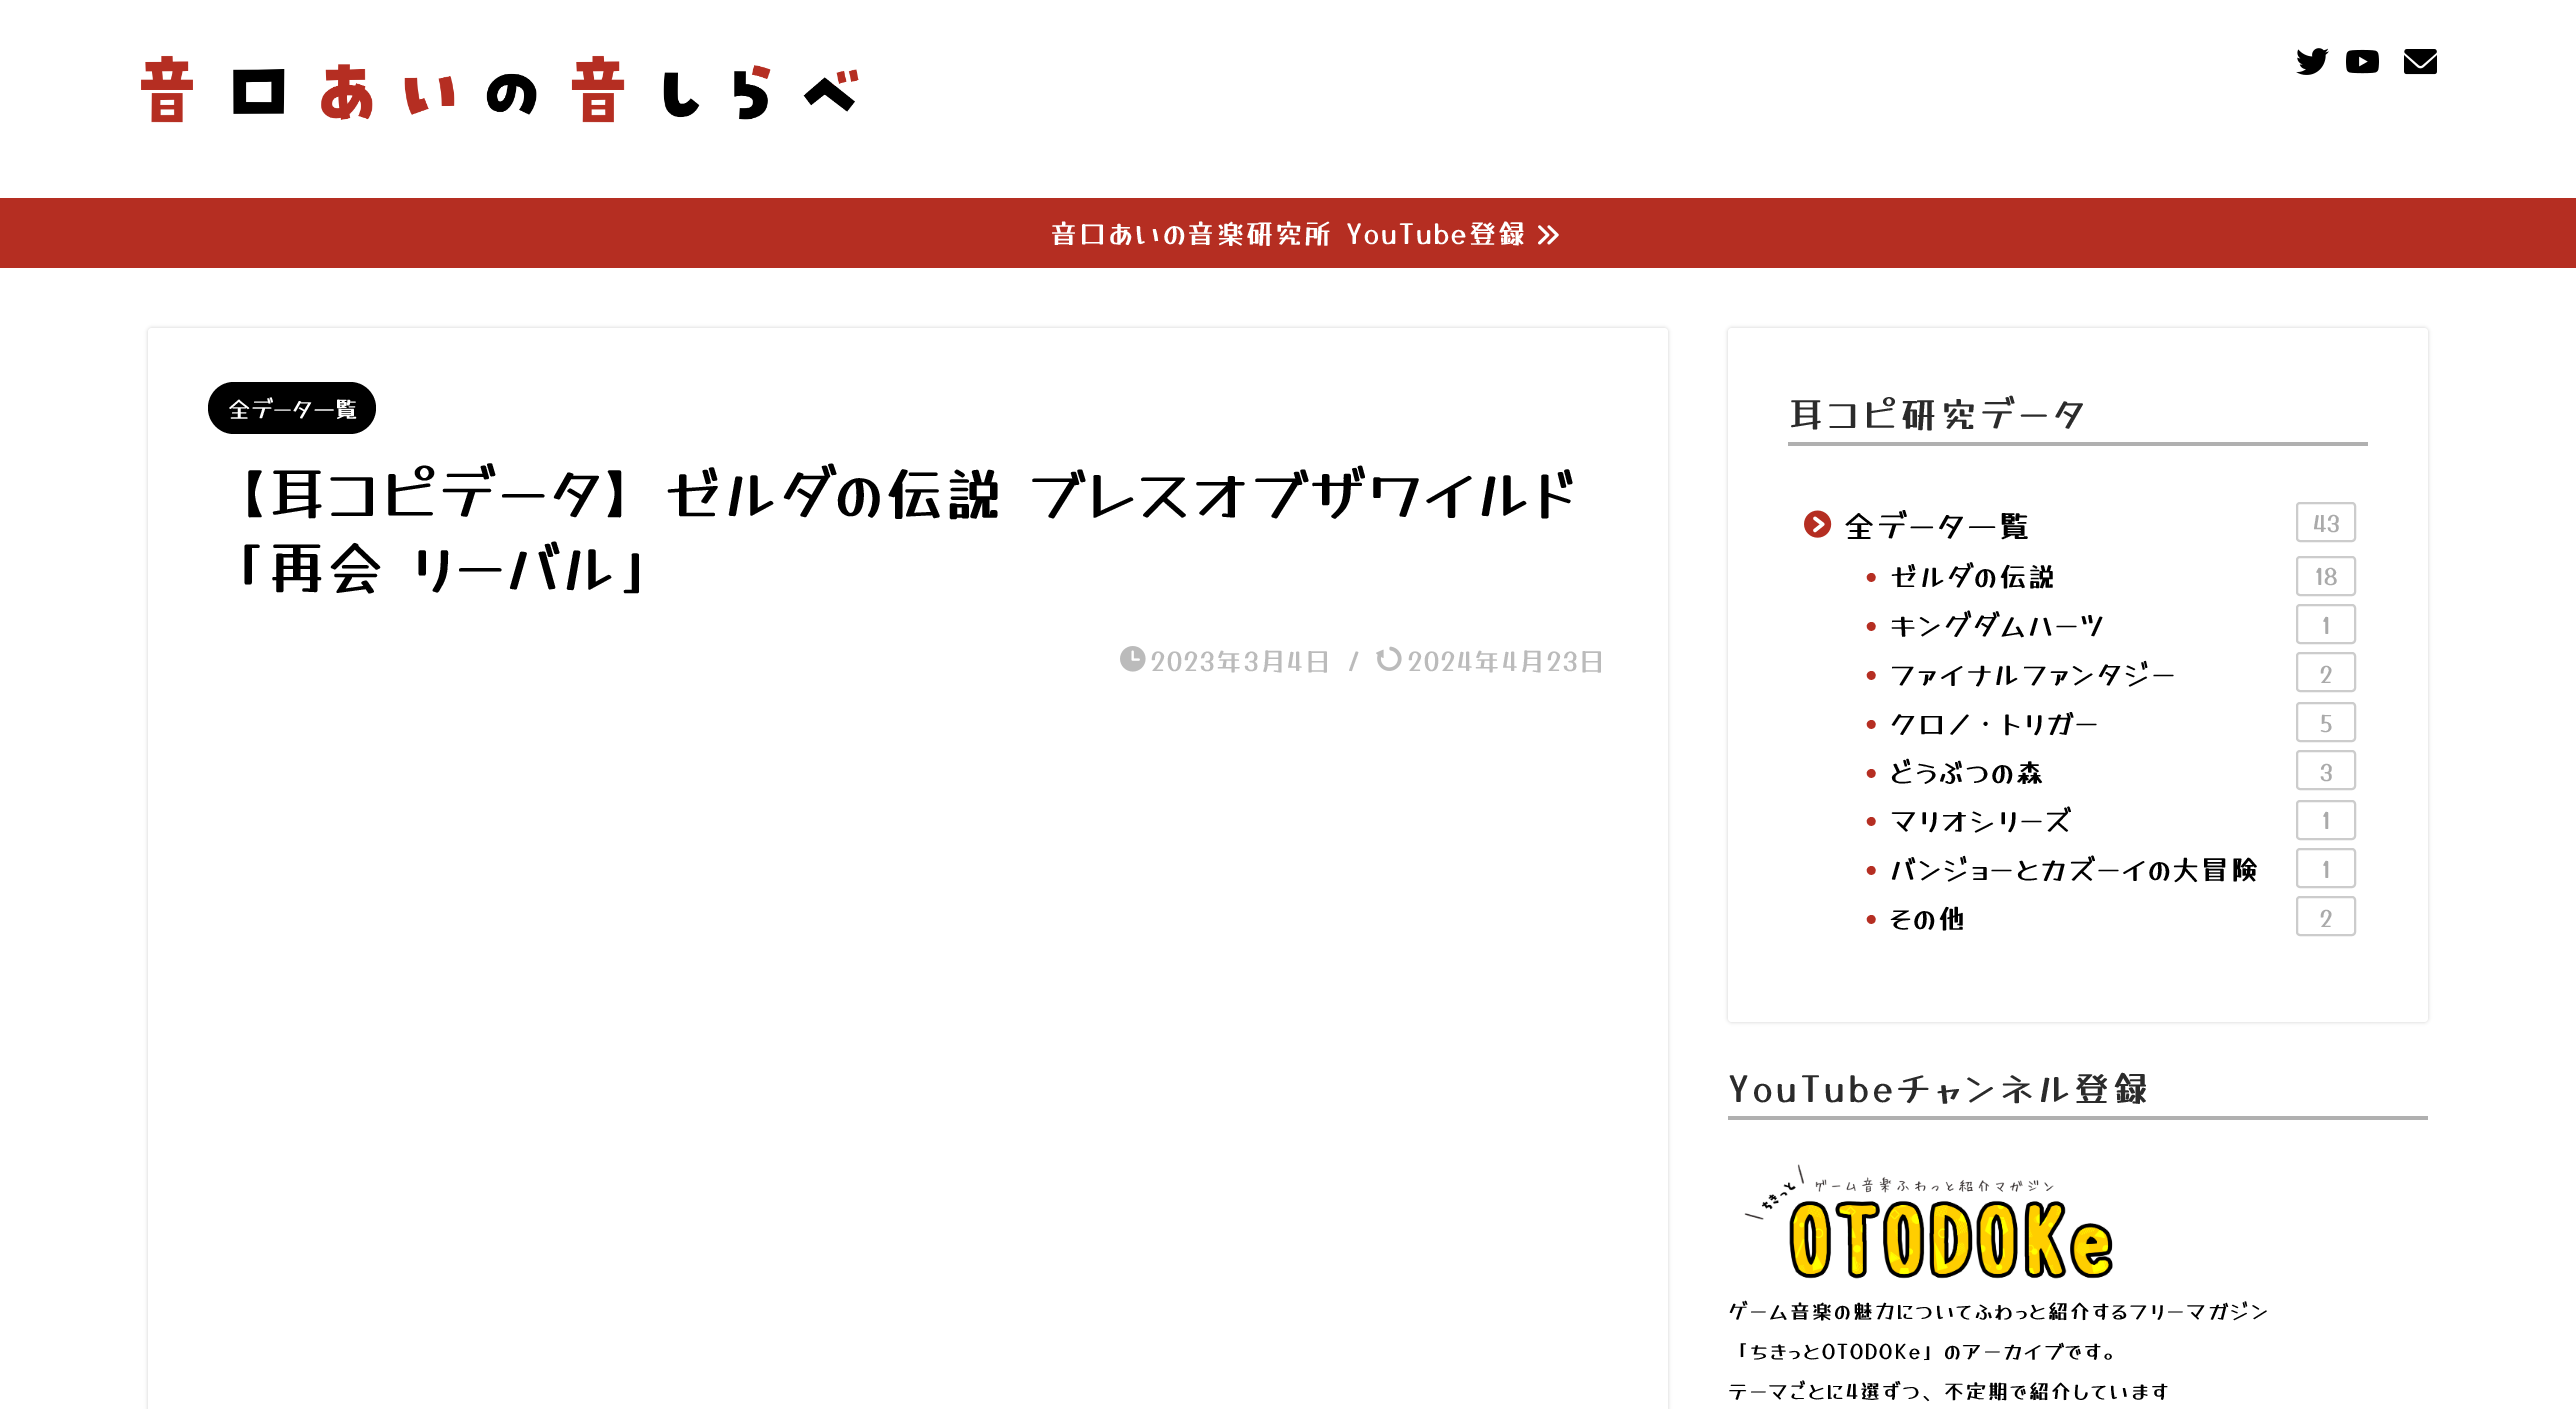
%!PS
<< /PageSize [2576 1409] /PageUsesTransparency true >> setpagedevice
/mt/moveto load def
/fl/fill load def
/st/stroke load def
/lw/setlinewidth load def
/co { dup -16 bitshift 255 div exch dup -8 bitshift 255 and 255 div exch 255 and 255 div setrgbcolor } def
/fn { [ exch dup neg 0 0 3 -1 roll 0 0 ] selectfont } def
/tx { co fn moveto show } def
/bx { co rectfill } def
/al { dup .setfillconstantalpha .setstrokeconstantalpha } def
/rr { 5 dict begin { /r /h /w /y /x } { exch def } forall
  x r add y moveto x w add y 2 copy h add r arct x w add y h add x 1 index r arct
  x y h add x y r arct x y 2 copy exch w add exch r arct closepath end } def
/sh { 12 dict begin { /a /b /q /h /w /y /x } { exch def } forall gsave /was 0 def
  9 -2 -9 { dup b mul 4 div /e exch def 1 sub .425 mul 2.718 exch exp 1 add a .99 .min exch div /now exch def
    1 1 now sub 1 was sub div sub al /was now def
    w h .min e 2 mul add 0 gt { x e sub y e sub w e 2 mul add h e 2 mul add
      q e add b .6 mul add w h .min 2 div e add .min 0 .max rr fill } if } for grestore end } def
/im { 5 dict begin { /h /w /y /x /name } { exch def } forall
  gsave x y translate w h scale
  w h 8 [w 0 0 h 0 0] name (r) file false 3 colorimage grestore end } def
0 .pushpdf14devicefilter
0 1409 translate 1 -1 scale
4 setmiterlimit
0 0 2576 1409 16#FFFFFF bx
(media/1.raw) 141 55 718 68 im
(media/2.raw) 2296 48 33 27 im
(media/3.raw) 2346 49 33 25 im
(media/4.raw) 2404 49 33 26 im
0 198 2576 70 16#B52E22 bx
(media/5.raw) 1538 225 21 20 im
16#000000 co
148 328 1520 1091 4 2 .18 sh
16#FFFFFF co
148 328 1520 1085 4 rr fl
16#000000 co
208 382 168 52 26 rr fl
(media/6.raw) 1120 646 26 26 im
(media/7.raw) 1376 646 26 25 im
1728 328 700 694 4 2 .18 sh
16#FFFFFF co
1728 328 700 694 4 rr fl
1788 442 580 4 16#B0B0B0 bx
(media/8.raw) 1804 510 28 28 im
16#CCCCCC co
2 lw
2297 503 58 38 3 rr st
2297 557 58 38 3 rr st
2297 605 58 38 3 rr st
2297 653 58 38 3 rr st
2297 703 58 38 3 rr st
2297 751 58 38 3 rr st
2297 801 58 38 3 rr st
2297 849 58 38 3 rr st
2297 897 58 38 3 rr st
1728 1116 700 4 16#B0B0B0 bx
(media/9.raw) 1744 1164 369 115 im
/YuseiMagic-Regular 27.25 fn
16#FFFFFF co
1050 244 mt 2 0 (音口あいの音楽研究所 YouTube登録) ashow
(全データ一覧) 228 418 /YuseiMagic-Regular 22.5 16#FFFFFF tx
/YuseiMagic-Regular 57.6 fn
16#000000 co
208 516 mt 2 0 (【耳コピデータ】ゼルダの伝説 ブレスオブザワイルド) ashow
208 590 mt 2 0 (「再会 リーバル」) ashow
/YuseiMagic-Regular 25.5 fn
16#BBBBBB co
1151 671 mt 2 0 (2023年3月4日) ashow
1347 671 mt 2 0 (/) ashow
1408 671 mt 2 0 (2024年4月23日) ashow
/YuseiMagic-Regular 35.25 fn
16#2B2B2B co
1788 428 mt 4 0 (耳コピ研究データ) ashow
/YuseiMagic-Regular 30.5 fn
16#000000 co
1844 538 mt 2 0 (全データ一覧) ashow
(43) 2313 532 /YuseiMagic-Regular 22.5 16#AAAAAA tx
/WenQuanYiZenHei-Bold 48 fn
16#B52E22 co
1846 595 mt 2 0 (・) ashow
/YuseiMagic-Regular 27.25 fn
16#000000 co
1890 587 mt 2 0 (ゼルダの伝説) ashow
(18) 2315 585 /YuseiMagic-Regular 22.5 16#AAAAAA tx
/WenQuanYiZenHei-Bold 48 fn
16#B52E22 co
1846 644 mt 2 0 (・) ashow
/YuseiMagic-Regular 27.25 fn
16#000000 co
1890 636 mt 2 0 (キングダムハーツ) ashow
(1) 2322 634 /YuseiMagic-Regular 22.5 16#AAAAAA tx
/WenQuanYiZenHei-Bold 48 fn
16#B52E22 co
1846 693 mt 2 0 (・) ashow
/YuseiMagic-Regular 27.25 fn
16#000000 co
1890 685 mt 2 0 (ファイナルファンタジー) ashow
(2) 2320 683 /YuseiMagic-Regular 22.5 16#AAAAAA tx
/WenQuanYiZenHei-Bold 48 fn
16#B52E22 co
1846 742 mt 2 0 (・) ashow
/YuseiMagic-Regular 27.25 fn
16#000000 co
1890 734 mt 2 0 (クロノ・トリガー) ashow
(5) 2320 732 /YuseiMagic-Regular 22.5 16#AAAAAA tx
/WenQuanYiZenHei-Bold 48 fn
16#B52E22 co
1846 791 mt 2 0 (・) ashow
/YuseiMagic-Regular 27.25 fn
16#000000 co
1890 783 mt 2 0 (どうぶつの森) ashow
(3) 2320 781 /YuseiMagic-Regular 22.5 16#AAAAAA tx
/WenQuanYiZenHei-Bold 48 fn
16#B52E22 co
1846 839 mt 2 0 (・) ashow
/YuseiMagic-Regular 27.25 fn
16#000000 co
1890 831 mt 2 0 (マリオシリーズ) ashow
(1) 2322 829 /YuseiMagic-Regular 22.5 16#AAAAAA tx
/WenQuanYiZenHei-Bold 48 fn
16#B52E22 co
1846 888 mt 2 0 (・) ashow
/YuseiMagic-Regular 27.25 fn
16#000000 co
1890 880 mt 2 0 (バンジョーとカズーイの大冒険) ashow
(1) 2322 878 /YuseiMagic-Regular 22.5 16#AAAAAA tx
/WenQuanYiZenHei-Bold 48 fn
16#B52E22 co
1846 937 mt 2 0 (・) ashow
/YuseiMagic-Regular 27.25 fn
16#000000 co
1890 929 mt 2 0 (その他) ashow
(2) 2320 927 /YuseiMagic-Regular 22.5 16#AAAAAA tx
/YuseiMagic-Regular 35.25 fn
16#2B2B2B co
1728 1102 mt 4 0 (YouTubeチャンネル登録) ashow
/YuseiMagic-Regular 20 fn
16#000000 co
1728 1319 mt 2 0 (ゲーム音楽の魅力についてふわっと紹介するフリーマガジン) ashow
1728 1359 mt 2 0 (「ちきっとOTODOKe」のアーカイブです。) ashow
1728 1399 mt 2 0 (テーマごとに4選ずつ、不定期で紹介しています) ashow
.poppdf14devicefilter showpage
